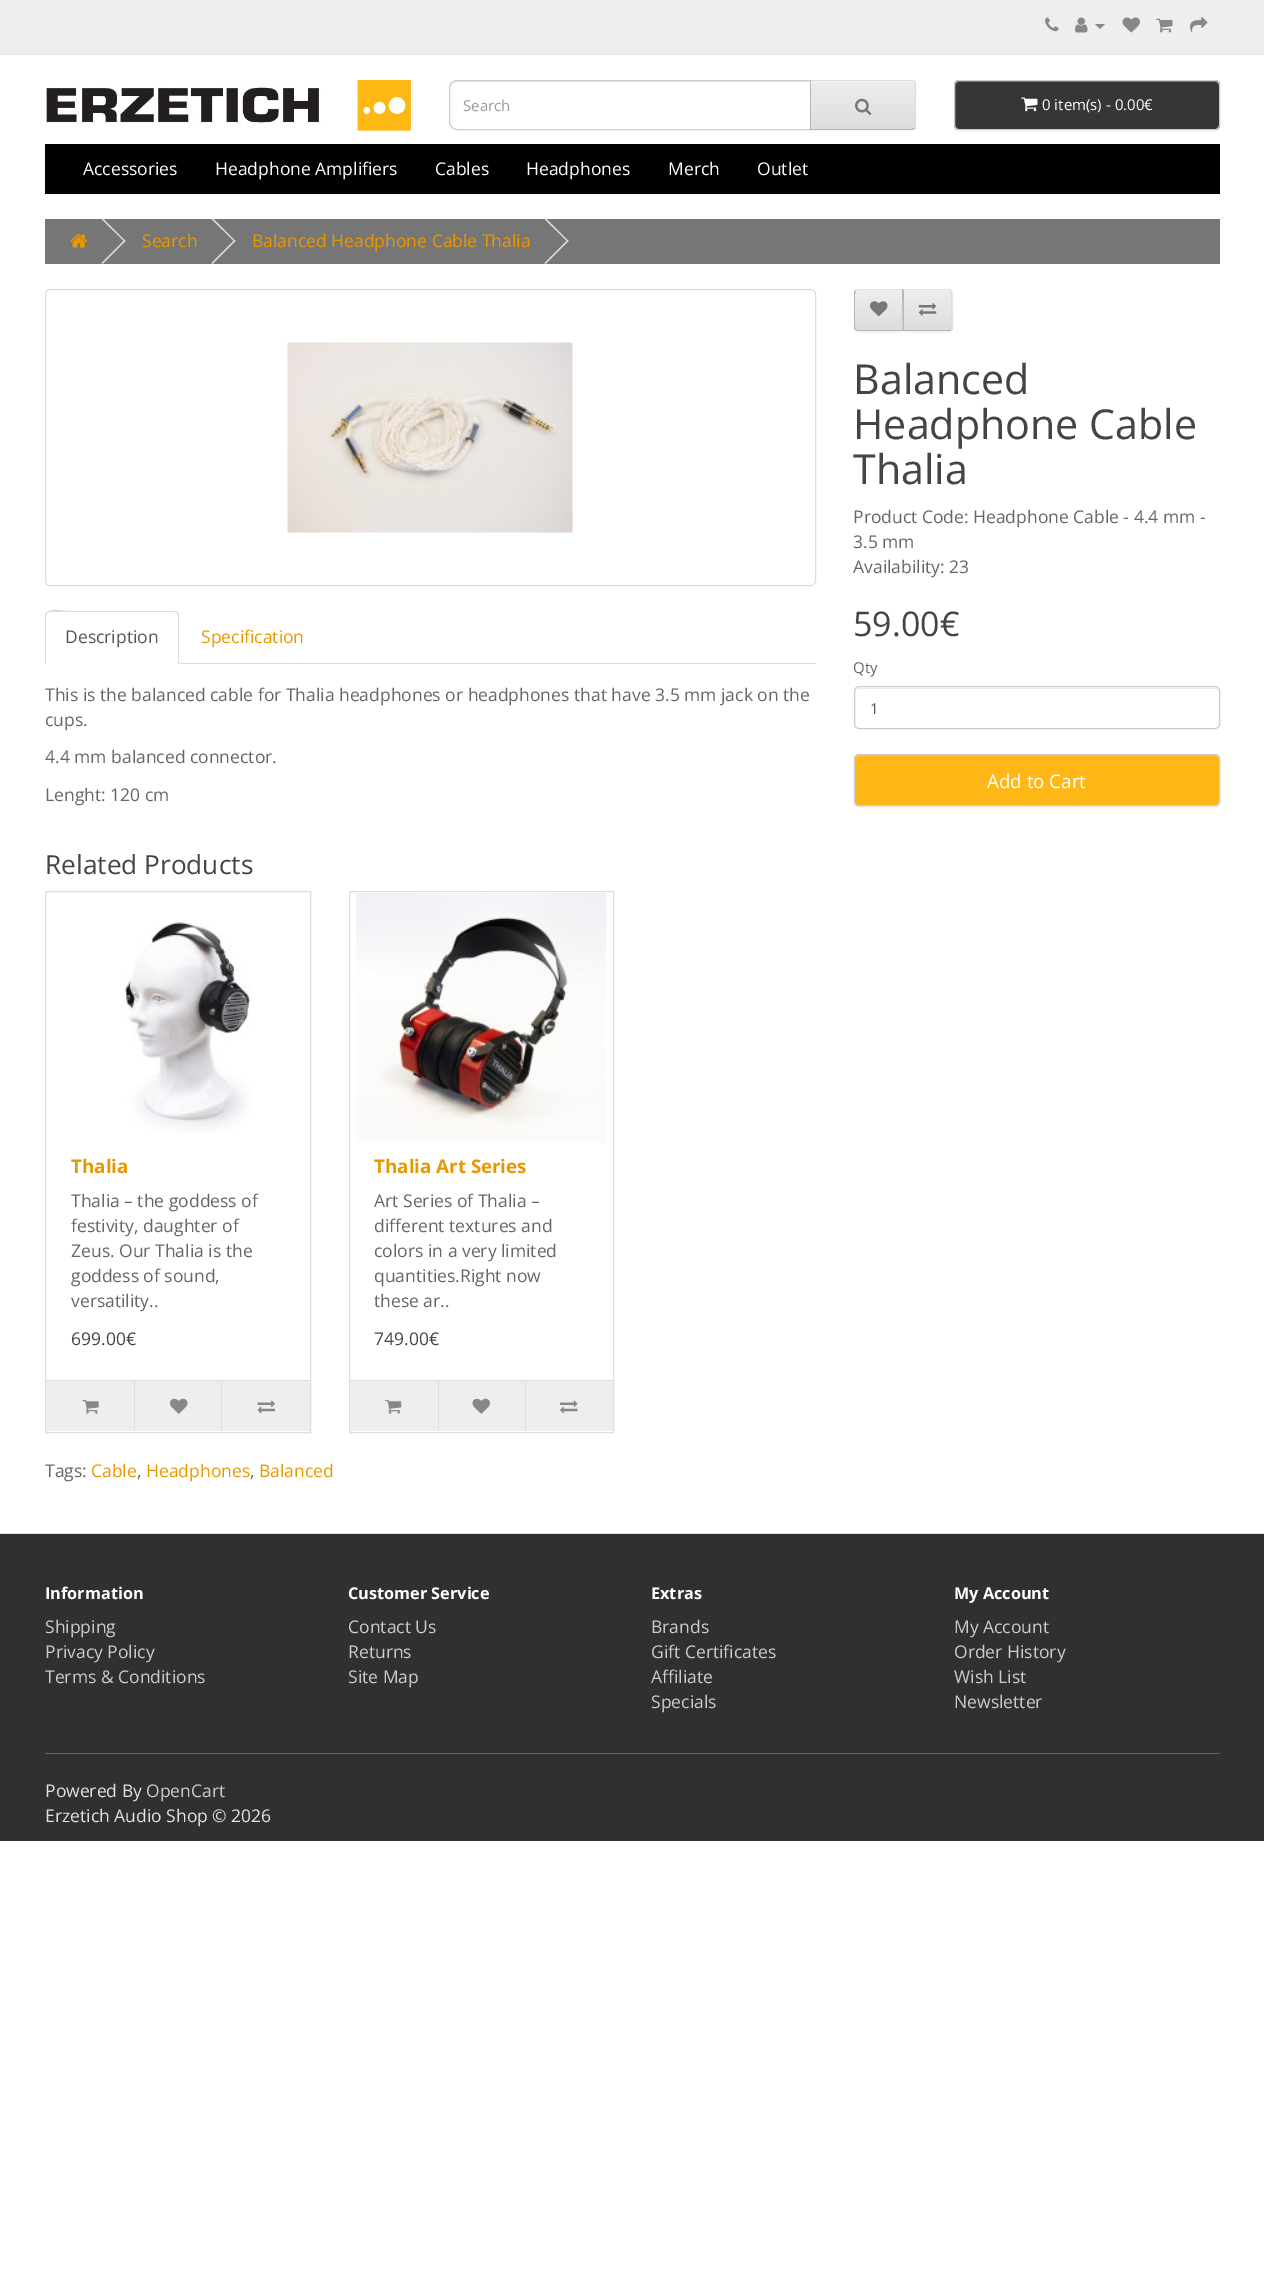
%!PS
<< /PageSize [1264 2271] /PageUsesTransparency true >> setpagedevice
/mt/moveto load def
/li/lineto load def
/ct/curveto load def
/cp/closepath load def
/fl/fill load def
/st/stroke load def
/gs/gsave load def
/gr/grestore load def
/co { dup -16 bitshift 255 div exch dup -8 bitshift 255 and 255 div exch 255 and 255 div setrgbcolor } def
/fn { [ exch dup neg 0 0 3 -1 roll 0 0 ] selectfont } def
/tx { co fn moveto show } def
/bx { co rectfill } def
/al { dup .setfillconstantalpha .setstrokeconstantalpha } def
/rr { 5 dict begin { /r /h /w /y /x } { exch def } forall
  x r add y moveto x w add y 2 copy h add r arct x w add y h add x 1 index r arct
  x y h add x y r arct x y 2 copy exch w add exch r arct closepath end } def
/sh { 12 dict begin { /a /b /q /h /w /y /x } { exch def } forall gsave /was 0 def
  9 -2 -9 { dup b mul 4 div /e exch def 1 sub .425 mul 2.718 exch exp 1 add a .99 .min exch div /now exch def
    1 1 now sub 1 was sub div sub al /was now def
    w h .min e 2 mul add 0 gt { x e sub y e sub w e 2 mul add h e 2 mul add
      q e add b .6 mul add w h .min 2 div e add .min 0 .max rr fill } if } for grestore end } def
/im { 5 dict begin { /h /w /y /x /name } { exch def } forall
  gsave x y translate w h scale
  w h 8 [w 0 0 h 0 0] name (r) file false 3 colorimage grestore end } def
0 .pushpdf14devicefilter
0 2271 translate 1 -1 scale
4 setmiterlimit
0 0 1264 2271 16#FFFFFF bx
0 0 1264 54 16#EEEEEE bx
0 54 1264 1 16#E2E2E2 bx
(media/1.raw) 1045 17 14 15 im
(media/2.raw) 1075 17 13 16 im
16#888888 co
1095 24 mt 1105 24 li 1100 29 li cp fl
(media/3.raw) 1122 17 18 16 im
(media/4.raw) 1156 18 17 15 im
(media/5.raw) 1190 17 18 16 im
(media/6.raw) 46 80 365 52 im
16#ECECEC co
456 82 mt 810 82 li 810 81 li 456 81 li 453 81 450 84 450 87 ct 450 89 li 450 85 453 82 456 82 ct cp fl
16#CCCCCC co
457 80.5 mt 810.5 80.5 li 810.5 129.5 li 457 129.5 li 453 129.5 449.5 126 449.5 122 ct 449.5 88 li 449.5 84 453 80.5 457 80.5 ct cp st
16#000000 co
810 81 106 50 5 1 .05 sh
gs
810 80 mt 911 80 li 914 80 916 82 916 85 ct 916 125 li 916 128 914 130 911 130 ct 810 130 li cp clip newpath
gs 811 81 mt 916 81 li 916 129 li 811 129 li cp clip newpath
<< /ShadingType 2 /ColorSpace /DeviceRGB /Coords [863 81 863 129] /Extend [true true] /Function << /FunctionType 2 /Domain [0 1] /C0 [.933 .933 .933] /C1 [.867 .867 .867] /N 1 >> >> shfill gr
gr
16#F1F1F1 co
811 82 mt 911 82 li 913 82 915 84 915 86 ct 915 85 li 915 83 913 81 911 81 ct 811 81 li cp fl
16#DDDDDD co
810 80 mt 811 81 li 911 81 li 914 82 li 915 82 li 914 81 913 80 911 80 ct cp fl
915 82 mt 916 82 916 84 916 85 ct 916 125 li 916 126 916 128 915 128 ct 914 128 li 915 127 915 126 915 125 ct 915 85 li 915 84 915 83 914 82 ct cp fl
16#B3B3B3 co
911 130 mt 913 130 914 129 915 128 ct 914 128 li 911 129 li 811 129 li 810 130 li cp fl
16#B7B7B7 co
810 80 mt 810 130 li 811 129 li 811 81 li cp fl
(media/7.raw) 855 98 17 17 im
16#000000 co
954 81 266 50 5 1 .05 sh
16#363636 co
954 80 266 50 5 rr fl
16#5E5E5E co
959 82 mt 1215 82 li 1217 82 1219 84 1219 86 ct 1219 85 li 1219 83 1217 81 1215 81 ct 959 81 li 957 81 955 83 955 85 ct 955 86 li 955 84 957 82 959 82 ct cp fl
16#CCCCCC co
954.5 80.5 265 49 4.5 rr st
(media/8.raw) 1021 97 17 15 im
45 144 1175 50 16#000000 bx
45 219 1175 45 16#767676 bx
(media/9.raw) 70 234 18 14 im
16#DDDDDD co
101.5 219 mt 102.5 218 li 125.5 241 li 124.5 241.5 li cp fl
101.5 263 mt 124.5 240 li 125.5 241 li 102.5 264 li cp fl
211.5 219 mt 212.5 218 li 235.5 241 li 234.5 241.5 li cp fl
211.5 263 mt 234.5 240 li 235.5 241 li 212.5 264 li cp fl
544.5 219 mt 545.5 218 li 568.5 241 li 567.5 241.5 li cp fl
544.5 263 mt 567.5 240 li 568.5 241 li 545.5 264 li cp fl
45.5 289.5 770 296 4.5 rr st
(media/10.raw) 287 342 286 192 im
179 663 637 1 16#DDDDDD bx
50 612 mt 47 613 li 46 613 li 52 607 62 611 70 611 ct 176 611 li 178 612 li 177 613 li 174 612 li cp fl
178 612 mt 179 614 li 179 664 li 177 662 li 178 662 li 178 616 li 178 615 178 614 177 613 ct cp fl
45 664 mt 47 662 li 46 662 li 46 616 li 46 615 46 614 47 613 ct 46 613 li 45 613 45 615 45 616 ct cp fl
16#000000 co
854 290 50 43 5 1 .05 sh
gs
859 289 mt 904 289 li 904 331 li 859 331 li 856 331 854 329 854 326 ct 854 294 li 854 291 856 289 859 289 ct cp clip newpath
gs 854 290 mt 902 290 li 902 330 li 854 330 li cp clip newpath
<< /ShadingType 2 /ColorSpace /DeviceRGB /Coords [879 290 879 330] /Extend [true true] /Function << /FunctionType 2 /Domain [0 1] /C0 [.933 .933 .933] /C1 [.867 .867 .867] /N 1 >> >> shfill gr
gr
0.2 al
16#FFFFFF co
859 291 mt 902 291 li 902 330 li 903 330 li 903 290 li 859 290 li 857 290 855 292 855 294 ct 855 295 li 855 293 857 291 859 291 ct cp fl
1 al
16#DDDDDD co
859 289 mt 858 289 856 290 855 290 ct 856 291 li 857 290 858 290 859 290 ct 902 290 li 904 289 li cp fl
904 331 mt 902 330 li 902 290 li 904 289 li cp fl
16#B3B3B3 co
904 331 mt 859 331 li 858 331 856 330 855 330 ct 856 329 li 857 330 858 330 859 330 ct 902 330 li cp fl
16#B7B7B7 co
855.5 290.5 mt 854.5 291 854 292.5 854 294 ct 854 326 li 854 327.5 854.5 329 855.5 329.5 ct 856 329 li 855.5 328 855 327 855 326 ct 855 294 li 855 293 855.5 292 856 291 ct cp fl
(media/11.raw) 870 301 18 16 im
16#000000 co
903 290 50 43 5 1 .05 sh
16#E7E7E7 co
903 289 mt 948 289 li 951 289 953 291 953 294 ct 953 326 li 953 329 951 331 948 331 ct 903 331 li cp fl
gs
903 289 mt 948 289 li 951 289 953 291 953 294 ct 953 326 li 953 329 951 331 948 331 ct 903 331 li cp clip newpath
gs 904 290 mt 953 290 li 953 330 li 904 330 li cp clip newpath
<< /ShadingType 2 /ColorSpace /DeviceRGB /Coords [928 290 928 330] /Extend [true true] /Function << /FunctionType 2 /Domain [0 1] /C0 [.933 .933 .933] /C1 [.867 .867 .867] /N 1 >> >> shfill gr
gr
16#F1F1F1 co
904 291 mt 948 291 li 950 291 951 293 951 295 ct 951 294 li 951 292 949 290 947 290 ct 904 290 li cp fl
16#DDDDDD co
904 290 mt 949 290 li 950 291 li 951 290 li 949 289 li 903 289 li cp fl
951 290.5 mt 951.5 291.5 952 292.5 952 294 ct 952 326 li 952 327.5 951.5 328.5 951 329.5 ct 950 329 li 950.5 328 951 327 951 326 ct 951 294 li 951 293 950.5 292 950 291 ct cp fl
16#B3B3B3 co
951 330 mt 949 331 li 903 331 li 904 330 li 949 330 li 950 329 li cp fl
16#B7B7B7 co
902 289 mt 904 290 li 904 330 li 903 331 li cp fl
(media/12.raw) 918 302 19 14 im
16#ECECEC co
859 689 mt 1215 689 li 1217 689 1219 690 1219 692 ct 1219 690 1217 688 1215 688 ct 859 688 li 857 688 855 690 855 692 ct 855 690 857 689 859 689 ct cp fl
16#CCCCCC co
854.5 686.5 365 42 4.5 rr st
16#000000 co
854 755 366 53 5 1 .05 sh
16#FFB717 co
854 754 366 52 5 rr fl
16#FFC545 co
859 756 mt 1215 756 li 1217 756 1219 758 1219 760 ct 1219 757 1218 755 1215 755 ct 858 755 li 856 757 li 855 760 li 855 758 857 756 859 756 ct cp fl
16#CCCCCC co
854.5 754.5 365 51 4.5 rr st
16#DDDDDD co
45.5 891.5 265 541 rectstroke
(media/13.raw) 124 922 127 210 im
46 1381 264 50 16#EEEEEE bx
46 1380 264 1 16#DDDDDD bx
(media/14.raw) 82 1400 17 14 im
134 1381 1 50 16#DDDDDD bx
(media/15.raw) 170 1398 18 16 im
221 1381 1 50 16#DDDDDD bx
(media/16.raw) 257 1400 18 14 im
349.5 891.5 264 541 rectstroke
(media/17.raw) 356 892 251 251 im
350 1381 263 50 16#EEEEEE bx
350 1380 263 1 16#DDDDDD bx
(media/18.raw) 385 1400 17 14 im
438 1381 1 50 16#DDDDDD bx
(media/19.raw) 472 1398 18 16 im
525 1381 1 50 16#DDDDDD bx
(media/20.raw) 560 1400 18 14 im
0 1534 1264 307 16#303030 bx
0 1533 1264 1 16#DDDDDD bx
45 1753 1175 1 16#666666 bx
(Search) 463 111 /OpenSans-Regular 15 16#999999 tx
(0 item\(s\) - 0.00€) 1042 110 /OpenSans-Regular 15 16#FFFFFF tx
(Accessories) 83 175 /OpenSans-Regular 17.5 16#FFFFFF tx
(Headphone Amplifiers) 215 175 /OpenSans-Regular 17.5 16#FFFFFF tx
(Cables) 435 175 /OpenSans-Regular 17.5 16#FFFFFF tx
(Headphones) 526 175 /OpenSans-Regular 17.5 16#FFFFFF tx
(Merch) 668 175 /OpenSans-Regular 17.5 16#FFFFFF tx
(Outlet) 757 175 /OpenSans-Regular 17.5 16#FFFFFF tx
(Search) 142 247 /OpenSans-Regular 17.5 16#E89700 tx
(Balanced Headphone Cable Thalia) 252 247 /OpenSans-Regular 17.5 16#E89700 tx
(Description) 65 643 /OpenSans-Regular 17.5 16#555555 tx
(Specification) 201 643 /OpenSans-Regular 17.5 16#E89700 tx
(This is the balanced cable for Thalia headphones or headphones that have 3.5 mm jack on the) 45 701 /OpenSans-Regular 17.5 16#666666 tx
(cups.) 45 726 /OpenSans-Regular 17.5 16#666666 tx
(4.4 mm balanced connector.) 45 763 /OpenSans-Regular 17.5 16#666666 tx
(Lenght: 120 cm) 45 801 /OpenSans-Regular 17.5 16#666666 tx
(Balanced) 853 394 /OpenSans-Regular 41.25 16#444444 tx
(Headphone Cable) 853 439 /OpenSans-Regular 41.25 16#444444 tx
(Thalia) 853 484 /OpenSans-Regular 41.25 16#444444 tx
(Product Code: Headphone Cable - 4.4 mm -) 853 523 /OpenSans-Regular 17.5 16#666666 tx
(3.5 mm) 853 548 /OpenSans-Regular 17.5 16#666666 tx
(Availability: 23) 853 573 /OpenSans-Regular 17.5 16#666666 tx
(59.00€) 853 636 /OpenSans-Regular 34 16#444444 tx
(Qty) 853 673 /OpenSans-Regular 15 16#666666 tx
(1) 870 714 /OpenSans-Regular 15 16#555555 tx
(Add to Cart) 987 788 /OpenSans-Regular 18.75 16#FFFFFF tx
(Related Products) 45 874 /OpenSans-Regular 26.25 16#444444 tx
(Thalia) 71 1173 /OpenSans-Bold 18.75 16#E89700 tx
(Thalia – the goddess of) 71 1207 /OpenSans-Regular 17.5 16#666666 tx
(festivity, daughter of) 71 1232 /OpenSans-Regular 17.5 16#666666 tx
(Zeus. Our Thalia is the) 71 1257 /OpenSans-Regular 17.5 16#666666 tx
(goddess of sound,) 71 1282 /OpenSans-Regular 17.5 16#666666 tx
(versatility..) 71 1307 /OpenSans-Regular 17.5 16#666666 tx
(699.00€) 71 1345 /OpenSans-Regular 17.5 16#444444 tx
(Thalia Art Series) 374 1173 /OpenSans-Bold 18.75 16#E89700 tx
(Art Series of Thalia –) 374 1207 /OpenSans-Regular 17.5 16#666666 tx
(different textures and) 374 1232 /OpenSans-Regular 17.5 16#666666 tx
(colors in a very limited) 374 1257 /OpenSans-Regular 17.5 16#666666 tx
(quantities.Right now) 374 1282 /OpenSans-Regular 17.5 16#666666 tx
(these ar..) 374 1307 /OpenSans-Regular 17.5 16#666666 tx
(749.00€) 374 1345 /OpenSans-Regular 17.5 16#444444 tx
(Tags:) 45 1477 /OpenSans-Regular 17.5 16#666666 tx
(Cable) 91 1477 /OpenSans-Regular 17.5 16#E89700 tx
(,) 137 1477 /OpenSans-Regular 17.5 16#666666 tx
(Headphones) 146 1477 /OpenSans-Regular 17.5 16#E89700 tx
(,) 250 1477 /OpenSans-Regular 17.5 16#666666 tx
(Balanced) 259 1477 /OpenSans-Regular 17.5 16#E89700 tx
(Information) 45 1599 /OpenSans-Bold 16.25 16#FFFFFF tx
(Shipping) 45 1633 /OpenSans-Regular 17.5 16#CCCCCC tx
(Privacy Policy) 45 1658 /OpenSans-Regular 17.5 16#CCCCCC tx
(Terms & Conditions) 45 1683 /OpenSans-Regular 17.5 16#CCCCCC tx
(Customer Service) 348 1599 /OpenSans-Bold 16.25 16#FFFFFF tx
(Contact Us) 348 1633 /OpenSans-Regular 17.5 16#CCCCCC tx
(Returns) 348 1658 /OpenSans-Regular 17.5 16#CCCCCC tx
(Site Map) 348 1683 /OpenSans-Regular 17.5 16#CCCCCC tx
(Extras) 651 1599 /OpenSans-Bold 16.25 16#FFFFFF tx
(Brands) 651 1633 /OpenSans-Regular 17.5 16#CCCCCC tx
(Gift Certificates) 651 1658 /OpenSans-Regular 17.5 16#CCCCCC tx
(Affiliate) 651 1683 /OpenSans-Regular 17.5 16#CCCCCC tx
(Specials) 651 1708 /OpenSans-Regular 17.5 16#CCCCCC tx
(My Account) 954 1599 /OpenSans-Bold 16.25 16#FFFFFF tx
(My Account) 954 1633 /OpenSans-Regular 17.5 16#CCCCCC tx
(Order History) 954 1658 /OpenSans-Regular 17.5 16#CCCCCC tx
(Wish List) 954 1683 /OpenSans-Regular 17.5 16#CCCCCC tx
(Newsletter) 954 1708 /OpenSans-Regular 17.5 16#CCCCCC tx
(Powered By) 45 1797 /OpenSans-Regular 17.5 16#E2E2E2 tx
(OpenCart) 146 1797 /OpenSans-Regular 17.5 16#CCCCCC tx
(Erzetich Audio Shop © 2026) 45 1822 /OpenSans-Regular 17.5 16#E2E2E2 tx
.poppdf14devicefilter showpage
